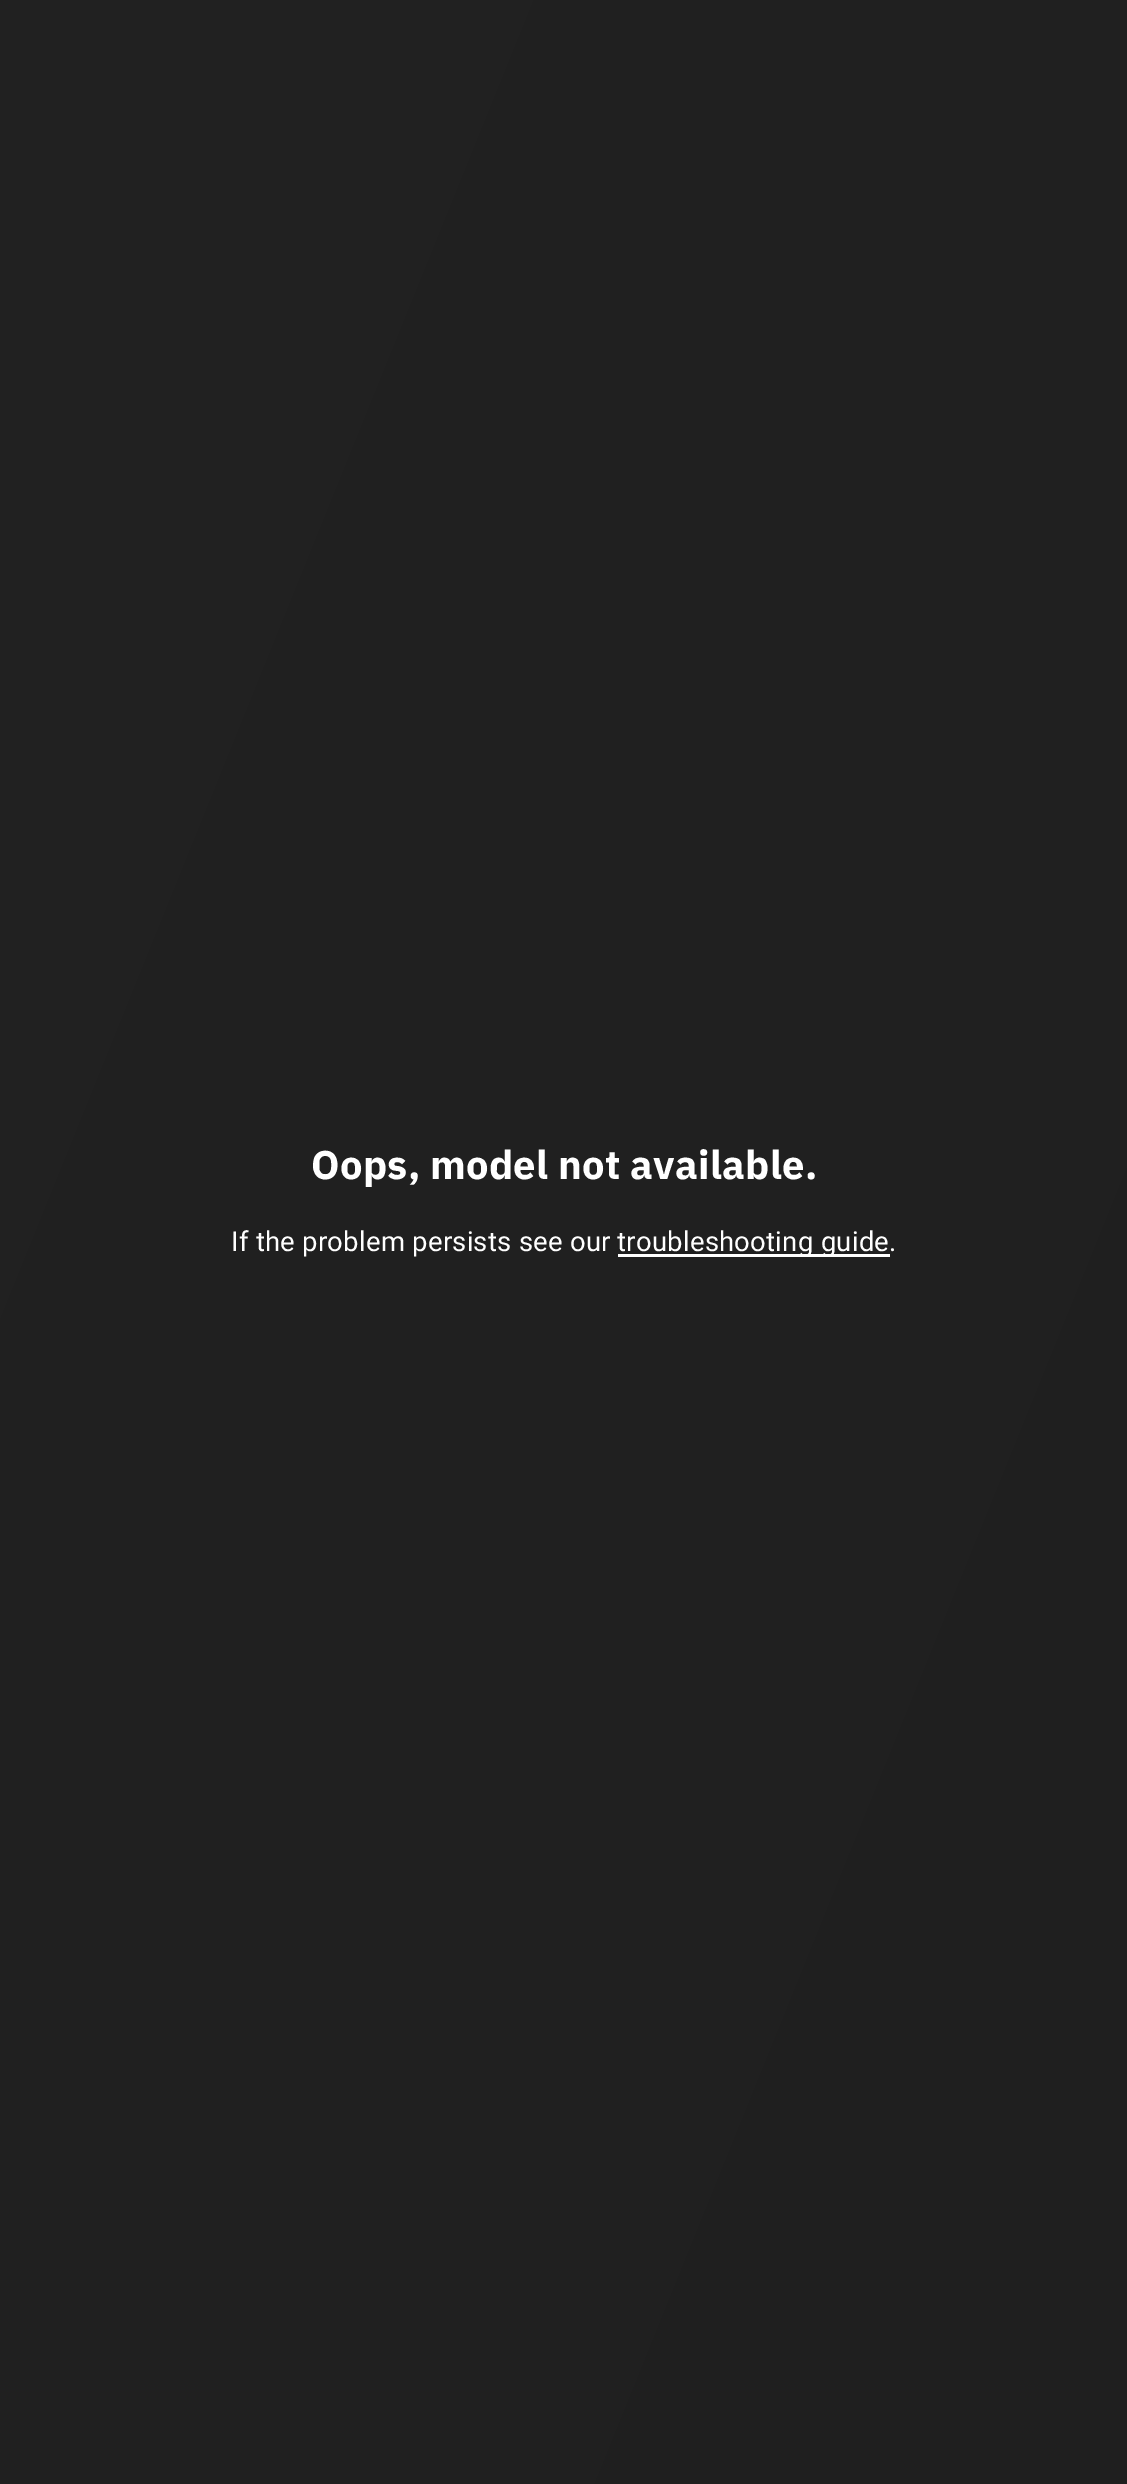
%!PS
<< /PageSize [1127 2484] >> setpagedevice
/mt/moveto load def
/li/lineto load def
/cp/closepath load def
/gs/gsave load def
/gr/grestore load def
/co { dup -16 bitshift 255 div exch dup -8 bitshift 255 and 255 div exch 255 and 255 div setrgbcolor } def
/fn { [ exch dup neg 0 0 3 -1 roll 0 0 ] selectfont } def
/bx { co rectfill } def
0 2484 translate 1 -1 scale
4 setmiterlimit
0 0 1127 2484 16#FFFFFF bx
gs 0 0 mt 1127 0 li 1127 2484 li 0 2484 li cp clip newpath
<< /ShadingType 2 /ColorSpace /DeviceRGB /Coords [-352 872 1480 1613] /Extend [true true] /Function << /FunctionType 2 /Domain [0 1] /C0 [.129 .129 .129] /C1 [.122 .122 .122] /N 1 >> >> shfill gr
618 1254 272 3 16#FFFFFF bx
/IBMPlexSans-Bold 40 fn
311 1179 mt .25 0 (Oops, model not available.) ashow
/Roboto-Regular 27.5 fn
231 1251 mt .25 0 (If the problem persists see our) ashow
617 1251 mt .25 0 (troubleshooting guide.) ashow
showpage
